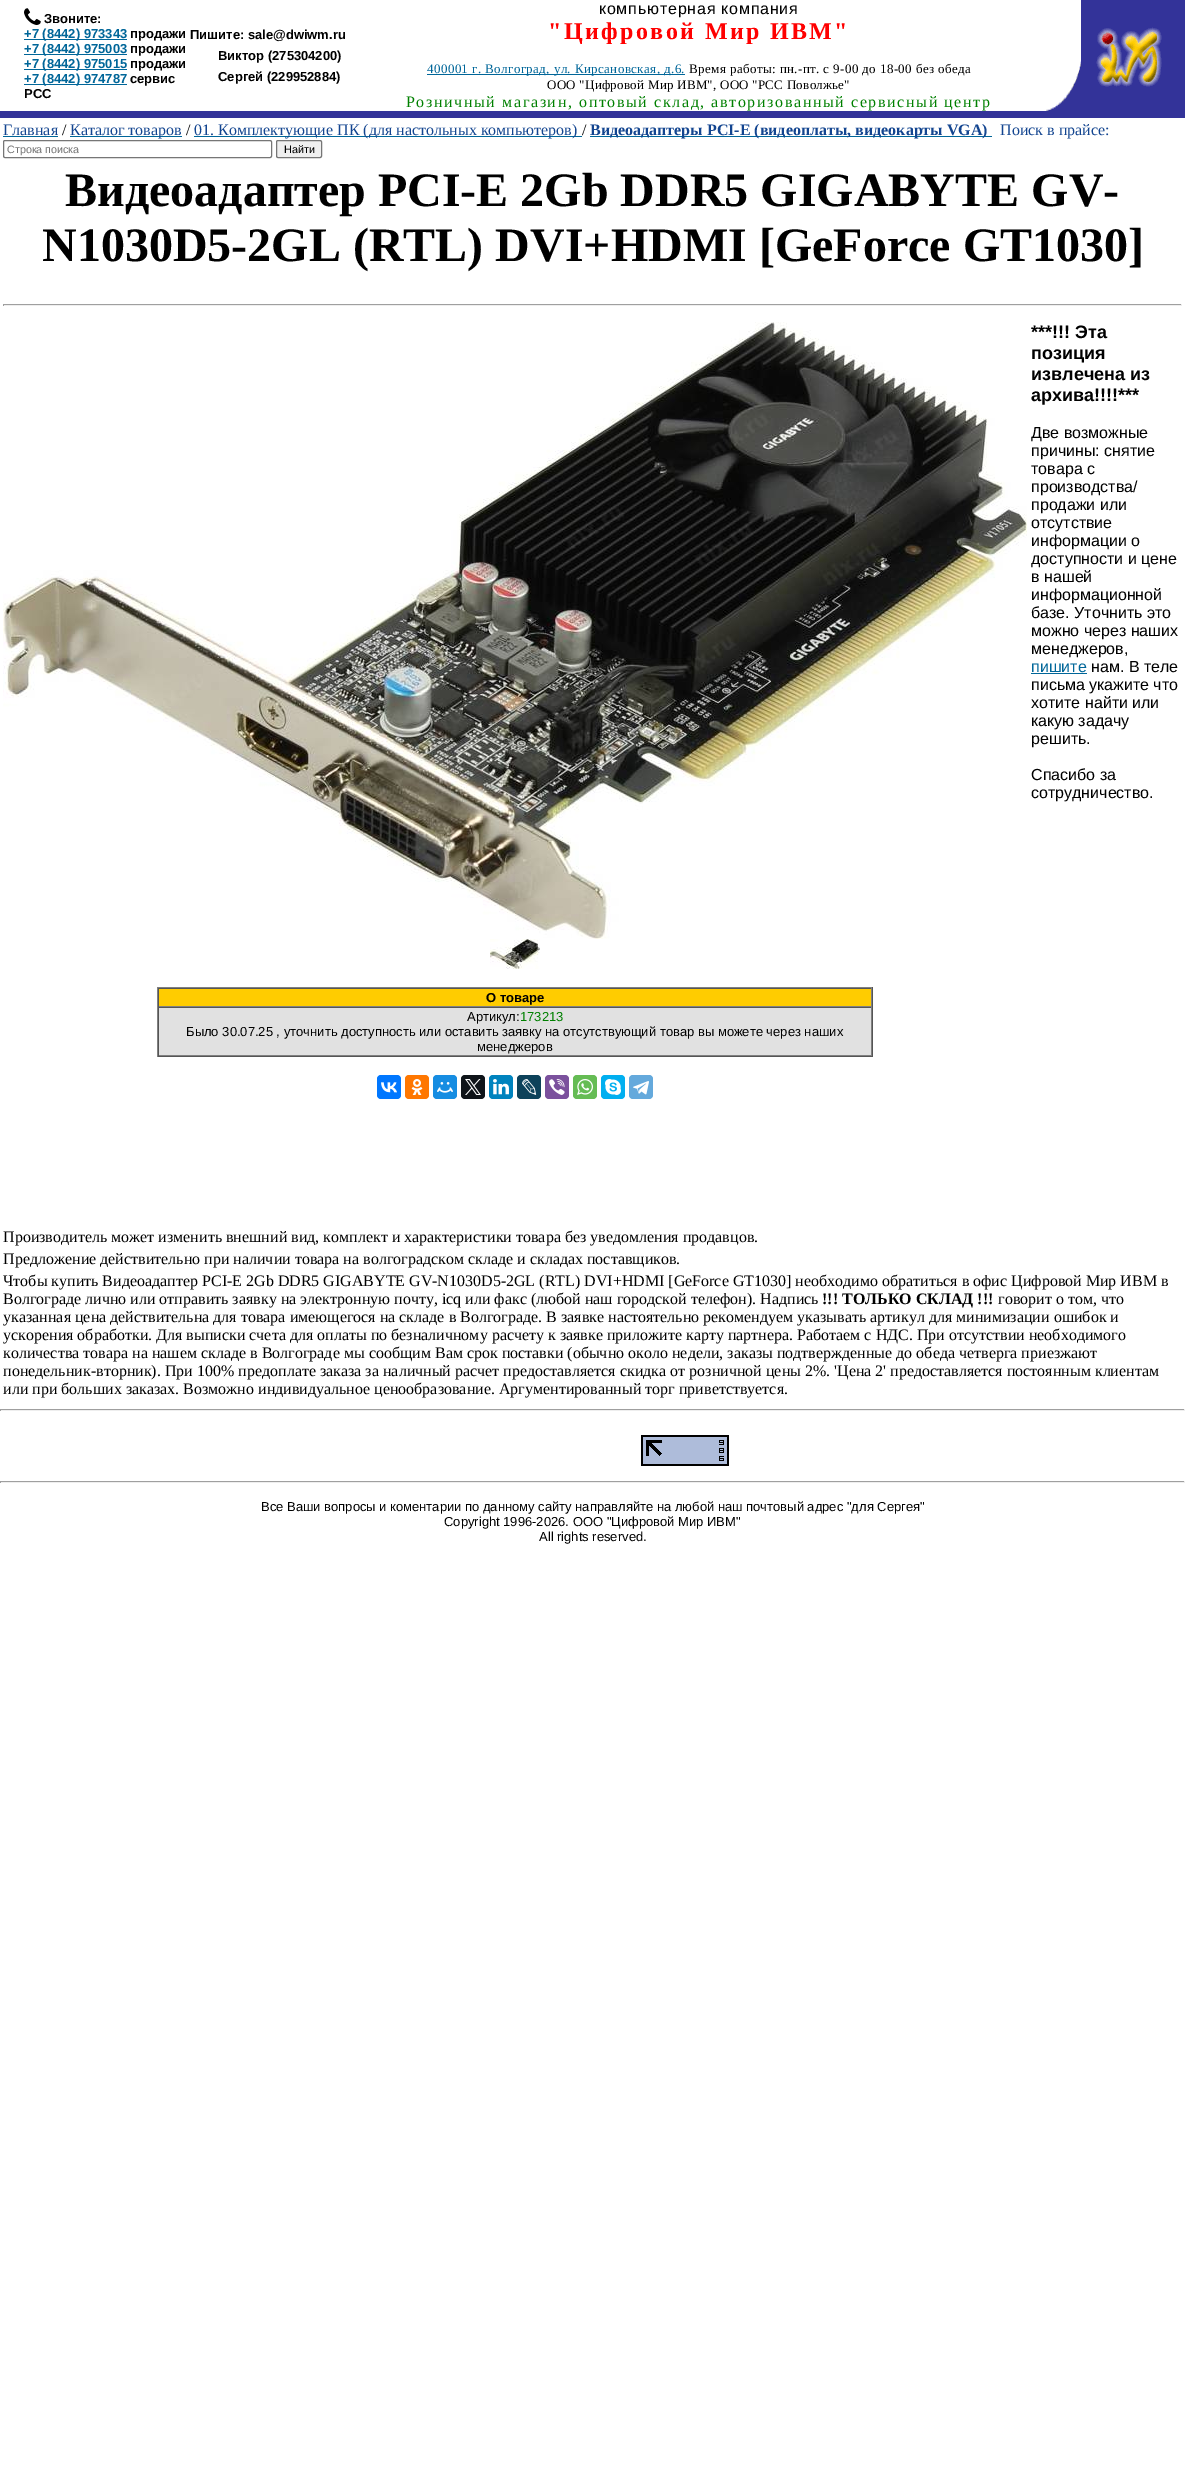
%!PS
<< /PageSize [1185 2486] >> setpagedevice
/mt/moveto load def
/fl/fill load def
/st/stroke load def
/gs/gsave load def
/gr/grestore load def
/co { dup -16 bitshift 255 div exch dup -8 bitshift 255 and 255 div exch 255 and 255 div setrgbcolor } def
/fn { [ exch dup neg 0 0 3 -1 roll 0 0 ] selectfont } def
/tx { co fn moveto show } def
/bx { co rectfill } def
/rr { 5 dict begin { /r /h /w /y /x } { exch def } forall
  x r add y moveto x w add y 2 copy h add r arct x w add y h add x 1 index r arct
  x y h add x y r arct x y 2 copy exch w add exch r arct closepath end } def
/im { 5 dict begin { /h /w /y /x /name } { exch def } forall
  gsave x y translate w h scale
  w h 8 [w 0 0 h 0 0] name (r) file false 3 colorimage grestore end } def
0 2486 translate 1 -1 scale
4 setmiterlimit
0 0 1185 2486 16#FFFFFF bx
(media/1.raw) 24 8 17 17 im
24 39 103 1 16#006699 bx
24 54 103 1 16#006699 bx
24 69 103 1 16#006699 bx
24 84 103 1 16#006699 bx
427 74 258 1 16#006699 bx
(media/2.raw) 1046 61 35 50 im
1081 0 104 118 16#333399 bx
(media/3.raw) 1096 27 66 60 im
0 111 1081 7 16#333399 bx
3 136 55 1 16#006699 bx
70 136 112 1 16#006699 bx
194 136 388 1 16#006699 bx
590 136 402 1 16#006699 bx
16#767676 co
3.5 140.5 268 17 1.5 rr st
16#EFEFEF co
276.5 140.5 45 17 1.5 rr gs fl gr
16#767676 co
st
3 304 1179 1 16#9F9F9F bx
1181 304 1 2 16#EEEEEE bx
3 305 1179 1 16#EEEEEE bx
3 304 1 2 16#9F9F9F bx
1031 673 56 1 16#006699 bx
(media/4.raw) 3 322 1024 617 im
(media/5.raw) 490 939 50 30 im
157 987 716 1 16#808080 bx
872 987 1 70 16#555555 bx
157 1056 716 1 16#555555 bx
157 987 1 70 16#808080 bx
159 989 712 17 16#FFCC00 bx
158 988 714 1 16#555555 bx
871 988 1 19 16#808080 bx
158 1006 714 1 16#808080 bx
158 988 1 19 16#555555 bx
159 1008 712 47 16#E1E1E1 bx
158 1007 714 1 16#555555 bx
871 1007 1 49 16#808080 bx
158 1055 714 1 16#808080 bx
158 1007 1 49 16#555555 bx
16#0077FF co
377 1075 24 24 4 rr fl
(media/6.raw) 381 1082 16 11 im
16#FF7700 co
405 1075 24 24 4 rr fl
(media/7.raw) 411 1079 12 16 im
16#168DE2 co
433 1075 24 24 4 rr fl
(media/8.raw) 437 1082 16 11 im
16#0F1419 co
461 1075 24 24 4 rr fl
(media/9.raw) 465 1079 16 16 im
16#0083BE co
489 1075 24 24 4 rr fl
(media/10.raw) 493 1079 16 16 im
16#0D425A co
517 1075 24 24 4 rr fl
(media/11.raw) 522 1079 15 16 im
16#7B519D co
545 1075 24 24 4 rr fl
(media/12.raw) 549 1079 16 16 im
16#65BC54 co
573 1075 24 24 4 rr fl
(media/13.raw) 577 1079 16 16 im
16#00AFF0 co
601 1075 24 24 4 rr fl
(media/14.raw) 605 1079 16 16 im
16#64A9DC co
629 1075 24 24 4 rr fl
(media/15.raw) 633 1081 16 14 im
0 1409 1185 1 16#9F9F9F bx
1184 1409 1 2 16#EEEEEE bx
0 1410 1185 1 16#EEEEEE bx
0 1409 1 2 16#9F9F9F bx
(media/16.raw) 641 1435 88 31 im
0 1481 1185 1 16#9F9F9F bx
1184 1481 1 2 16#EEEEEE bx
0 1482 1185 1 16#EEEEEE bx
0 1481 1 2 16#9F9F9F bx
(Звоните:) 44 23 /LiberationSans-Bold 13 16#000000 tx
(+7 \(8442\) 973343) 24 38 /LiberationSans-Bold 13 16#006699 tx
(продажи) 130 38 /LiberationSans-Bold 13 16#000000 tx
(+7 \(8442\) 975003) 24 53 /LiberationSans-Bold 13 16#006699 tx
(продажи) 130 53 /LiberationSans-Bold 13 16#000000 tx
(+7 \(8442\) 975015) 24 68 /LiberationSans-Bold 13 16#006699 tx
(продажи) 130 68 /LiberationSans-Bold 13 16#000000 tx
(+7 \(8442\) 974787) 24 83 /LiberationSans-Bold 13 16#006699 tx
(сервис) 130 83 /LiberationSans-Bold 13 16#000000 tx
(РСС) 24 98 /LiberationSans-Bold 13 16#000000 tx
(Пишите: sale@dwiwm.ru) 190 39 /LiberationSans-Bold 13 16#000000 tx
(Виктор \(275304200\)) 218 60 /LiberationSans-Bold 13 16#000000 tx
(Сергей \(229952884\)) 218 81 /LiberationSans-Bold 13 16#000000 tx
/LiberationSans-Regular 16 fn
599 14 mt .8 0 (компьютерная компания) ashow
/LiberationSerif-Bold 24 fn
16#FF0000 co
548 39 mt 2.4 0 ("Цифровой Мир ИВМ") ashow
/LiberationSerif-Regular 13 fn
16#006699 co
427 73 mt .4 0 (400001 г. Волгоград, ул. Кирсановская, д.6.) ashow
16#000000 co
689 73 mt .4 0 (Время работы: пн.-пт. с 9-00 до 18-00 без обеда) ashow
547 89 mt .25 0 (ООО "Цифровой Мир ИВМ", ООО "РСС Поволжье") ashow
/LiberationSerif-Regular 16 fn
16#008000 co
406 107 mt 1.6 0 (Розничный магазин, оптовый склад, авторизованный сервисный центр) ashow
(Главная) 3 135 /LiberationSerif-Regular 16 16#134590 tx
(/) 62 135 /LiberationSerif-Regular 16 16#000000 tx
(Каталог товаров) 70 135 /LiberationSerif-Regular 16 16#134590 tx
(/) 186 135 /LiberationSerif-Regular 16 16#000000 tx
(01. Комплектующие ПК \(для настольных компьютеров\)) 194 135 /LiberationSerif-Regular 16 16#134590 tx
(/) 582 135 /LiberationSerif-Regular 16 16#000000 tx
(Видеоадаптеры PCI-E \(видеоплаты, видеокарты VGA\)) 590 135 /LiberationSerif-Bold 16 16#134590 tx
(Поиск в прайсе:) 1000 135 /LiberationSerif-Regular 16 16#134590 tx
(Строка поиска) 7 153 /LiberationSans-Regular 10.75 16#757575 tx
(Найти) 284 153 /LiberationSans-Regular 10.75 16#000000 tx
(Видеоадаптер PCI-E 2Gb DDR5 GIGABYTE GV-) 65 206 /LiberationSerif-Bold 48 16#000000 tx
(N1030D5-2GL \(RTL\) DVI+HDMI [GeForce GT1030]) 42 261 /LiberationSerif-Bold 48 16#000000 tx
(***!!! Эта) 1031 338 /LiberationSans-Bold 18 16#000000 tx
(позиция) 1031 359 /LiberationSans-Bold 18 16#000000 tx
(извлечена из) 1031 380 /LiberationSans-Bold 18 16#000000 tx
(архива!!!!***) 1031 401 /LiberationSans-Bold 18 16#000000 tx
(Две возможные) 1031 438 /LiberationSans-Regular 16 16#000000 tx
(причины: снятие) 1031 456 /LiberationSans-Regular 16 16#000000 tx
(товара с) 1031 474 /LiberationSans-Regular 16 16#000000 tx
(производства/) 1031 492 /LiberationSans-Regular 16 16#000000 tx
(продажи или) 1031 510 /LiberationSans-Regular 16 16#000000 tx
(отсутствие) 1031 528 /LiberationSans-Regular 16 16#000000 tx
(информации о) 1031 546 /LiberationSans-Regular 16 16#000000 tx
(доступности и цене) 1031 564 /LiberationSans-Regular 16 16#000000 tx
(в нашей) 1031 582 /LiberationSans-Regular 16 16#000000 tx
(информационной) 1031 600 /LiberationSans-Regular 16 16#000000 tx
(базе. Уточнить это) 1031 618 /LiberationSans-Regular 16 16#000000 tx
(можно через наших) 1031 636 /LiberationSans-Regular 16 16#000000 tx
(менеджеров,) 1031 654 /LiberationSans-Regular 16 16#000000 tx
(пишите) 1031 672 /LiberationSans-Regular 16 16#006699 tx
(нам. В теле) 1091 672 /LiberationSans-Regular 16 16#000000 tx
(письма укажите что) 1031 690 /LiberationSans-Regular 16 16#000000 tx
(хотите найти или) 1031 708 /LiberationSans-Regular 16 16#000000 tx
(какую задачу) 1031 726 /LiberationSans-Regular 16 16#000000 tx
(решить.) 1031 744 /LiberationSans-Regular 16 16#000000 tx
(Спасибо за) 1031 780 /LiberationSans-Regular 16 16#000000 tx
(сотрудничество.) 1031 798 /LiberationSans-Regular 16 16#000000 tx
(О товаре) 486 1002 /LiberationSans-Bold 13 16#000000 tx
(Артикул:) 467 1021 /LiberationSans-Regular 13 16#000000 tx
(173213) 520 1021 /LiberationSans-Regular 13 16#008000 tx
(Было 30.07.25 , уточнить доступность или оставить заявку на отсутствующий товар вы можете через наших) 186 1036 /LiberationSans-Regular 13 16#000000 tx
(менеджеров) 477 1051 /LiberationSans-Regular 13 16#000000 tx
(Производитель может изменить внешний вид, комплект и характеристики товара без уведомления продавцов.) 3 1242 /LiberationSerif-Regular 16 16#000000 tx
(Предложение действительно при наличии товара на волгоградском складе и складах поставщиков.) 3 1264 /LiberationSerif-Regular 16 16#000000 tx
(Чтобы купить Видеоадаптер PCI-E 2Gb DDR5 GIGABYTE GV-N1030D5-2GL \(RTL\) DVI+HDMI [GeForce GT1030] необходимо обратиться в офис Цифровой Мир ИВМ в) 3 1286 /LiberationSerif-Regular 16 16#000000 tx
(Волгограде лично или отправить заявку на электронную почту, icq или факс \(любой наш городской телефон\). Надпись) 3 1304 /LiberationSerif-Regular 16 16#000000 tx
(!!! ТОЛЬКО СКЛАД !!!) 822 1304 /LiberationSerif-Bold 16 16#000000 tx
(говорит о том, что) 998 1304 /LiberationSerif-Regular 16 16#000000 tx
(указанная цена действительна для товара имеющегося на складе в Волгограде. В заявке настоятельно рекомендуем указывать артикул для минимизации ошибок и) 3 1322 /LiberationSerif-Regular 16 16#000000 tx
(ускорения обработки. Для выписки счета для оплаты по безналичному расчету к заявке приложите карту партнера. Работаем с НДС. При отсутствии необходимого) 3 1340 /LiberationSerif-Regular 16 16#000000 tx
(количества товара на нашем складе в Волгограде мы сообщим Вам срок поставки \(обычно около недели, заказы подтвержденные до обеда четверга приезжают) 3 1358 /LiberationSerif-Regular 16 16#000000 tx
(понедельник-вторник\). При 100% предоплате заказа за наличный расчет предоставляется скидка от розничной цены 2%. 'Цена 2' предоставляется постоянным клиентам) 3 1376 /LiberationSerif-Regular 16 16#000000 tx
(или при больших заказах. Возможно индивидуальное ценообразование. Аргументированный торг приветствуется.) 3 1394 /LiberationSerif-Regular 16 16#000000 tx
(Все Ваши вопросы и коментарии по данному сайту направляйте на любой наш почтовый адрес "для Сергея") 261 1511 /LiberationSans-Regular 13 16#000000 tx
(Copyright 1996-2026. ООО "Цифровой Мир ИВМ") 444 1526 /LiberationSans-Regular 13 16#000000 tx
(All rights reserved.) 539 1541 /LiberationSans-Regular 13 16#000000 tx
showpage
